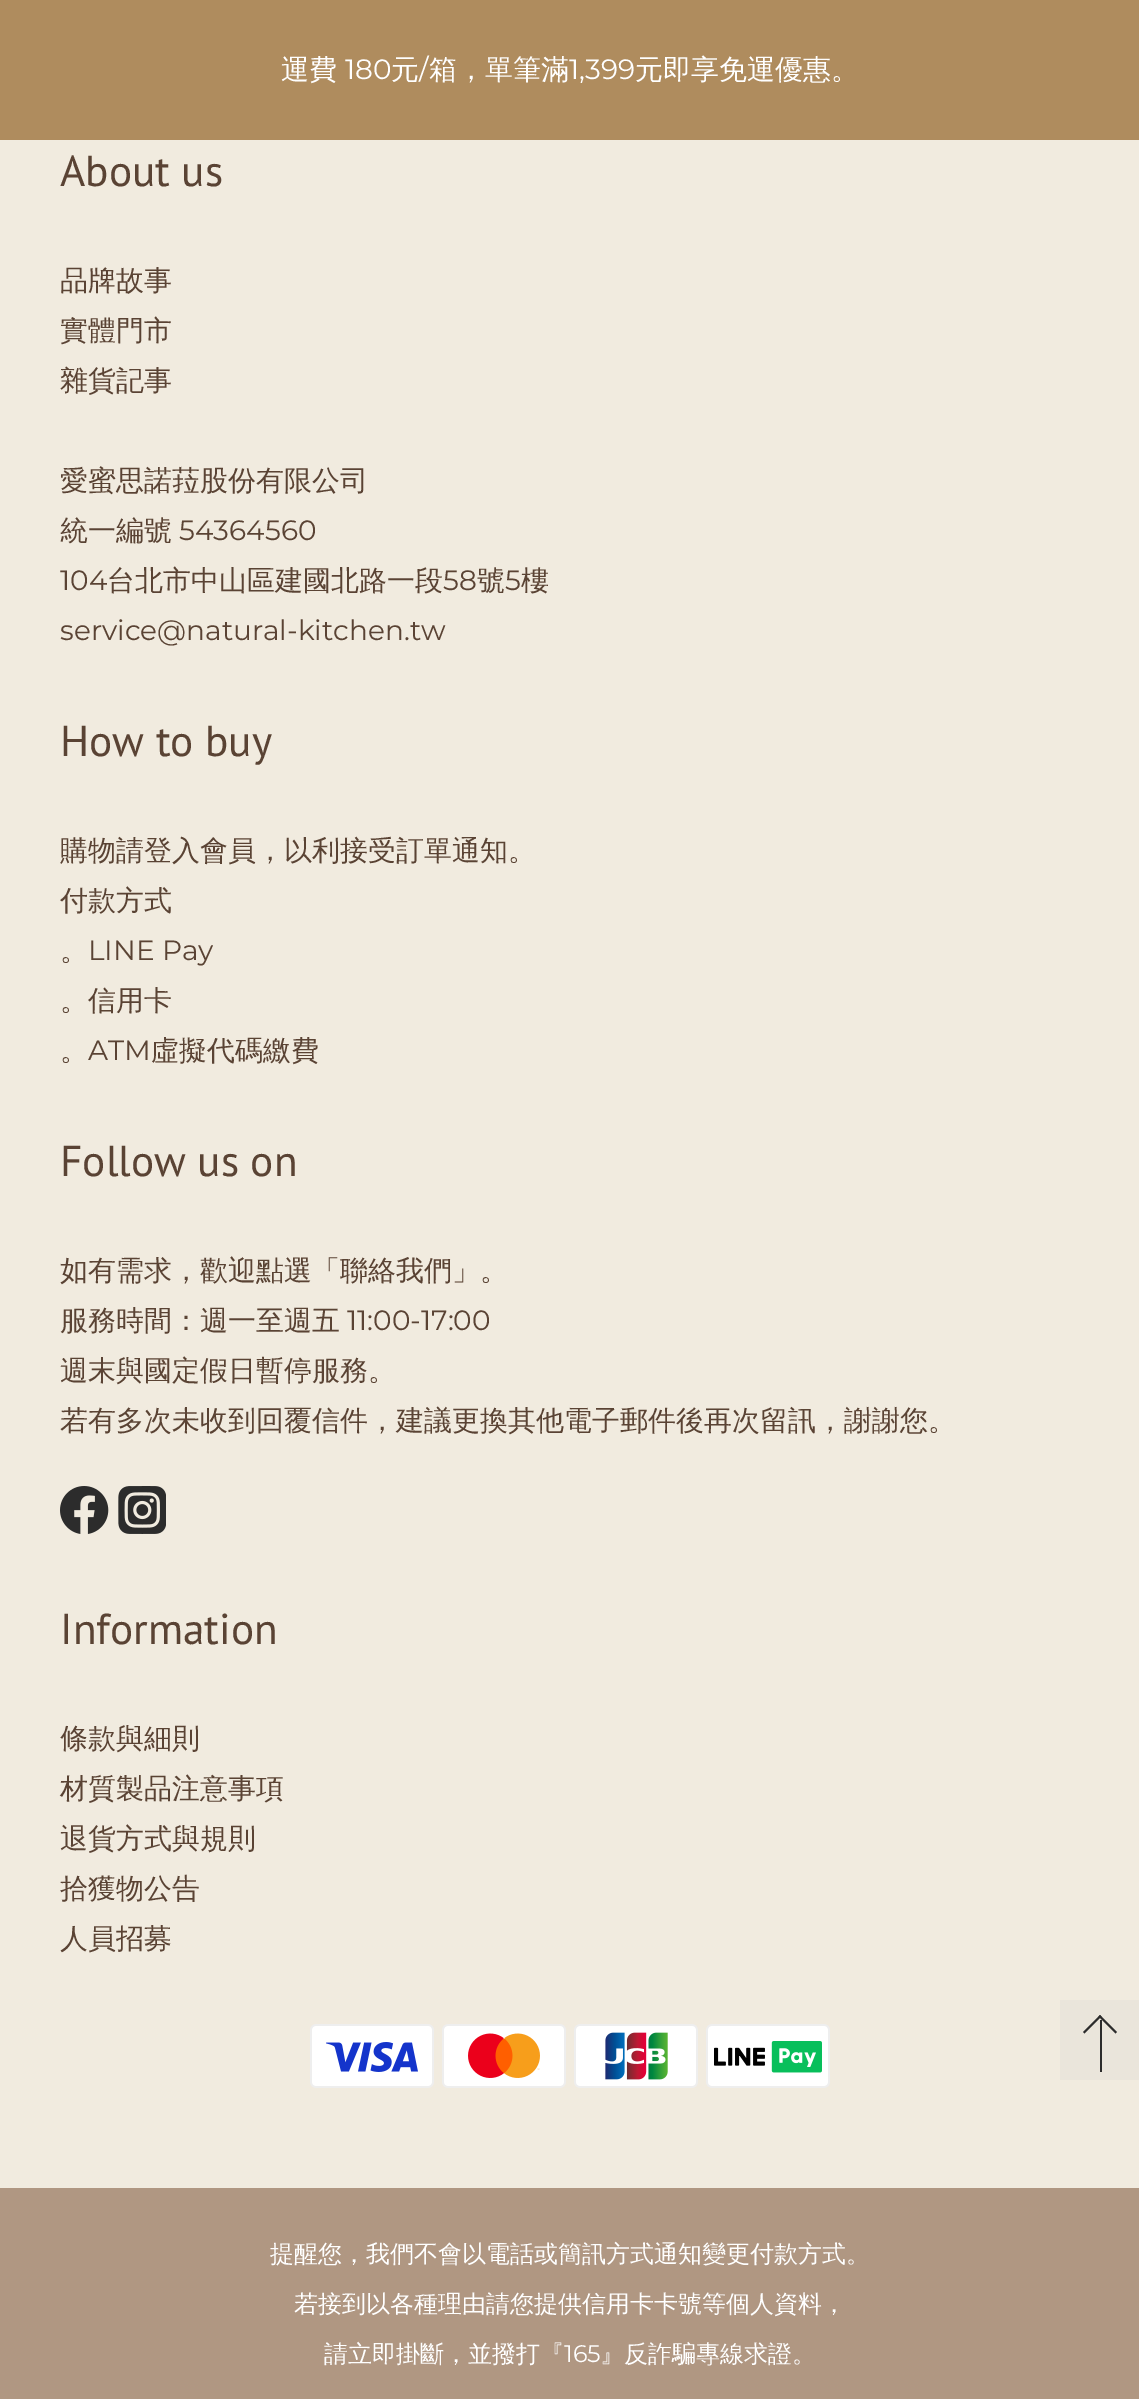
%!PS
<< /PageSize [1139 2399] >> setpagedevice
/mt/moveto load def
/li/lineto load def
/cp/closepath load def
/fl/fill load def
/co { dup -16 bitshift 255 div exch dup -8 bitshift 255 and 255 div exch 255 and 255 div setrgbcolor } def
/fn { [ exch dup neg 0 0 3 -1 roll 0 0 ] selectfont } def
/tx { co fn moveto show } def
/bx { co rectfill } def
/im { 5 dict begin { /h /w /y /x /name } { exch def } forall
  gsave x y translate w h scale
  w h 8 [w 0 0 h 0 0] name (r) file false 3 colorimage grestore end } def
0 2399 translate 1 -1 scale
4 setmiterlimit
0 0 1139 2399 16#F1EBDF bx
0 0 1139 140 16#AF8C5E bx
(media/1.raw) 60 1486 49 48 im
(media/2.raw) 118 1486 48 48 im
(media/3.raw) 310 2024 124 64 im
(media/4.raw) 442 2024 124 64 im
(media/5.raw) 574 2024 124 64 im
(media/6.raw) 706 2024 124 64 im
0 2188 1139 211 16#B09782 bx
1060 2000 79 80 16#EAE5DB bx
16#2C2C2C co
1100 2015 mt 1117 2032 li 1115.5 2033.5 li 1098.5 2016.5 li cp fl
1100 2015 mt 1101.5 2016.5 li 1084.5 2033.5 li 1083 2032 li cp fl
1100 2020 2 52 16#2C2C2C bx
(運費) 281 79 /WenQuanYiZenHei-Medium 28 16#FFFFFF tx
(180) 345 79 /Montserrat-Regular 28 16#FFFFFF tx
(元) 391 79 /WenQuanYiZenHei-Medium 28 16#FFFFFF tx
(/) 419 79 /Montserrat-Regular 28 16#FFFFFF tx
(箱，單筆滿) 429 79 /WenQuanYiZenHei-Medium 28 16#FFFFFF tx
(1,399) 569 79 /Montserrat-Regular 28 16#FFFFFF tx
(元即享免運優惠。) 635 79 /WenQuanYiZenHei-Medium 28 16#FFFFFF tx
(About us) 60 186 /PTSans-Regular 43.25 16#5A4334 tx
(品牌故事) 60 290 /WenQuanYiZenHei-Medium 28 16#5A4334 tx
(實體門市) 60 340 /WenQuanYiZenHei-Medium 28 16#5A4334 tx
(雜貨記事) 60 390 /WenQuanYiZenHei-Medium 28 16#5A4334 tx
(愛蜜思諾菈股份有限公司) 60 490 /WenQuanYiZenHei-Medium 28 16#5A4334 tx
(統一編號) 60 540 /WenQuanYiZenHei-Medium 28 16#5A4334 tx
(54364560) 179 540 /Montserrat-Regular 28 16#5A4334 tx
(104) 60 590 /Montserrat-Regular 28 16#5A4334 tx
(台北市中山區建國北路一段) 107 590 /WenQuanYiZenHei-Medium 28 16#5A4334 tx
(58) 443 590 /Montserrat-Regular 28 16#5A4334 tx
(號) 477 590 /WenQuanYiZenHei-Medium 28 16#5A4334 tx
(5) 505 590 /Montserrat-Regular 28 16#5A4334 tx
(樓) 521 590 /WenQuanYiZenHei-Medium 28 16#5A4334 tx
(service@natural-kitchen.tw) 60 640 /Montserrat-Regular 28 16#5A4334 tx
(How to buy) 60 756 /PTSans-Regular 43.25 16#5A4334 tx
(購物請登入會員，以利接受訂單通知。) 60 860 /WenQuanYiZenHei-Medium 28 16#5A4334 tx
(付款方式) 60 910 /WenQuanYiZenHei-Medium 28 16#5A4334 tx
(。) 60 960 /WenQuanYiZenHei-Medium 28 16#5A4334 tx
(LINE Pay) 88 960 /Montserrat-Regular 28 16#5A4334 tx
(。信用卡) 60 1010 /WenQuanYiZenHei-Medium 28 16#5A4334 tx
(。) 60 1060 /WenQuanYiZenHei-Medium 28 16#5A4334 tx
(ATM) 88 1060 /Montserrat-Regular 28 16#5A4334 tx
(虛擬代碼繳費) 151 1060 /WenQuanYiZenHei-Medium 28 16#5A4334 tx
(Follow us on) 60 1176 /PTSans-Regular 43.25 16#5A4334 tx
(如有需求，歡迎點選「聯絡我們」。) 60 1280 /WenQuanYiZenHei-Medium 28 16#5A4334 tx
(服務時間：週一至週五) 60 1330 /WenQuanYiZenHei-Medium 28 16#5A4334 tx
(11:00-17:00) 347 1330 /Montserrat-Regular 28 16#5A4334 tx
(週末與國定假日暫停服務。) 60 1380 /WenQuanYiZenHei-Medium 28 16#5A4334 tx
(若有多次未收到回覆信件，建議更換其他電子郵件後再次留訊，謝謝您。) 60 1430 /WenQuanYiZenHei-Medium 28 16#5A4334 tx
(Information) 60 1644 /PTSans-Regular 43.25 16#5A4334 tx
(條款與細則) 60 1748 /WenQuanYiZenHei-Medium 28 16#5A4334 tx
(材質製品注意事項) 60 1798 /WenQuanYiZenHei-Medium 28 16#5A4334 tx
(退貨方式與規則) 60 1848 /WenQuanYiZenHei-Medium 28 16#5A4334 tx
(拾獲物公告) 60 1898 /WenQuanYiZenHei-Medium 28 16#5A4334 tx
(人員招募) 60 1948 /WenQuanYiZenHei-Medium 28 16#5A4334 tx
(提醒您，我們不會以電話或簡訊方式通知變更付款方式。) 270 2262 /WenQuanYiZenHei-Medium 24 16#FFFFFF tx
(若接到以各種理由請您提供信用卡卡號等個人資料，) 294 2312 /WenQuanYiZenHei-Medium 24 16#FFFFFF tx
(請立即掛斷，並撥打『) 324 2362 /WenQuanYiZenHei-Medium 24 16#FFFFFF tx
(165) 564 2362 /Montserrat-Regular 24 16#FFFFFF tx
(』反詐騙專線求證。) 600 2362 /WenQuanYiZenHei-Medium 24 16#FFFFFF tx
showpage
